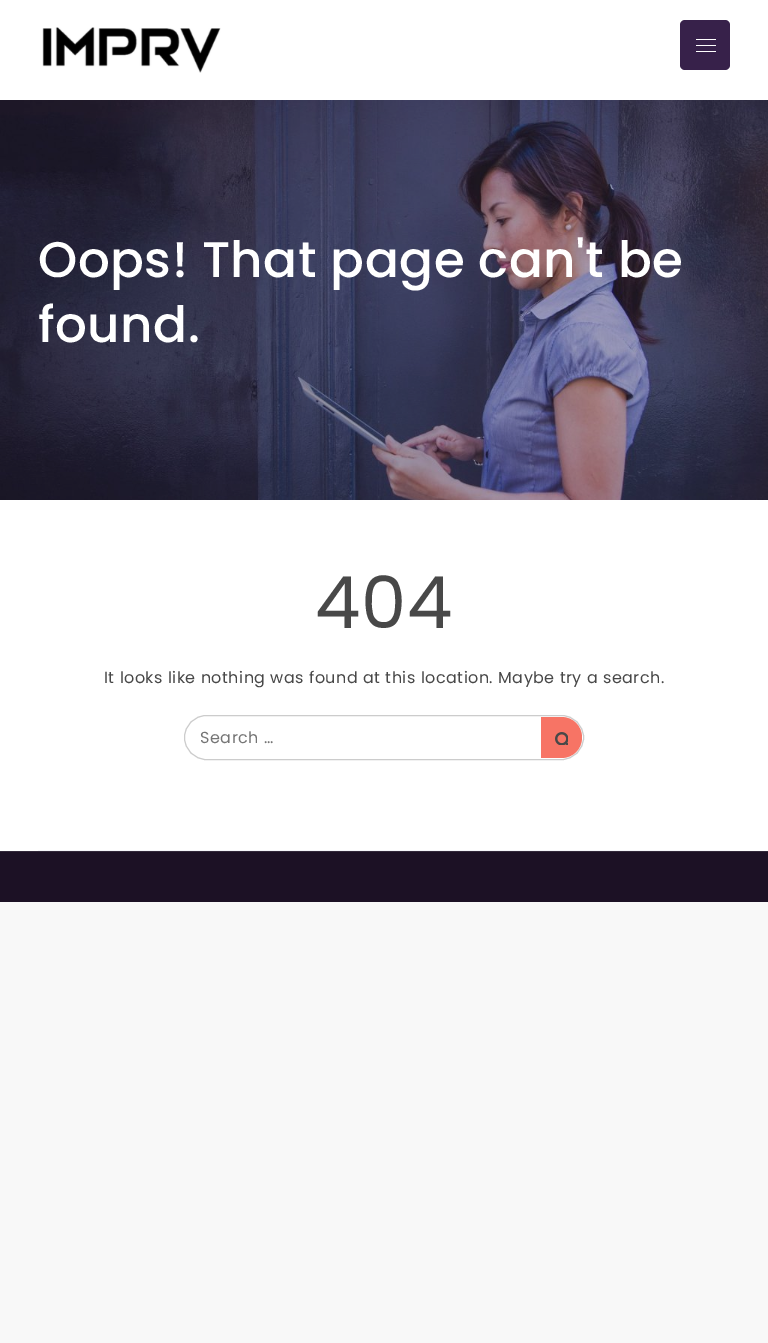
%!PS
<< /PageSize [768 1343] >> setpagedevice
/mt/moveto load def
/li/lineto load def
/ct/curveto load def
/cp/closepath load def
/fl/fill load def
/st/stroke load def
/co { dup -16 bitshift 255 div exch dup -8 bitshift 255 and 255 div exch 255 and 255 div setrgbcolor } def
/fn { [ exch dup neg 0 0 3 -1 roll 0 0 ] selectfont } def
/bx { co rectfill } def
/rr { 5 dict begin { /r /h /w /y /x } { exch def } forall
  x r add y moveto x w add y 2 copy h add r arct x w add y h add x 1 index r arct
  x y h add x y r arct x y 2 copy exch w add exch r arct closepath end } def
/im { 5 dict begin { /h /w /y /x /name } { exch def } forall
  gsave x y translate w h scale
  w h 8 [w 0 0 h 0 0] name (r) file false 3 colorimage grestore end } def
0 1343 translate 1 -1 scale
4 setmiterlimit
0 0 768 1343 16#F8F8F8 bx
0 0 768 851 16#FFFFFF bx
(media/1.raw) 42 27 179 46 im
16#37214A co
680 20 50 50 5 rr fl
696 39 20 1 16#FFFFFF bx
696 45 20 1 16#FFFFFF bx
696 51 20 1 16#FFFFFF bx
(media/2.raw) 0 100 768 400 im
38 850 692 1 16#F6F7FB bx
16#CCCCCC co
184.5 715.5 399 44 22 rr st
16#F77465 co
541 717 mt 561.5 717 li 573 717 582 726 582 737.5 ct 582 749 573 758 561.5 758 ct 541 758 li cp fl
(media/3.raw) 555 732 13 13 im
0 852 768 50 16#1C1125 bx
0 851 768 1 16#33293B bx
/Poppins-Medium 50 fn
16#FFFFFF co
38 277 mt .5 0 (Oops! That page can't be) ashow
38 342 mt .5 0 (found.) ashow
/Poppins-Regular 72 fn
16#484848 co
315 628 mt .5 0 (404) ashow
/Poppins-Regular 16 fn
104 683 mt .5 0 (It looks like nothing was found at this location. Maybe try a search.) ashow
16#757575 co
200 743 mt .5 0 (Search …) ashow
showpage
